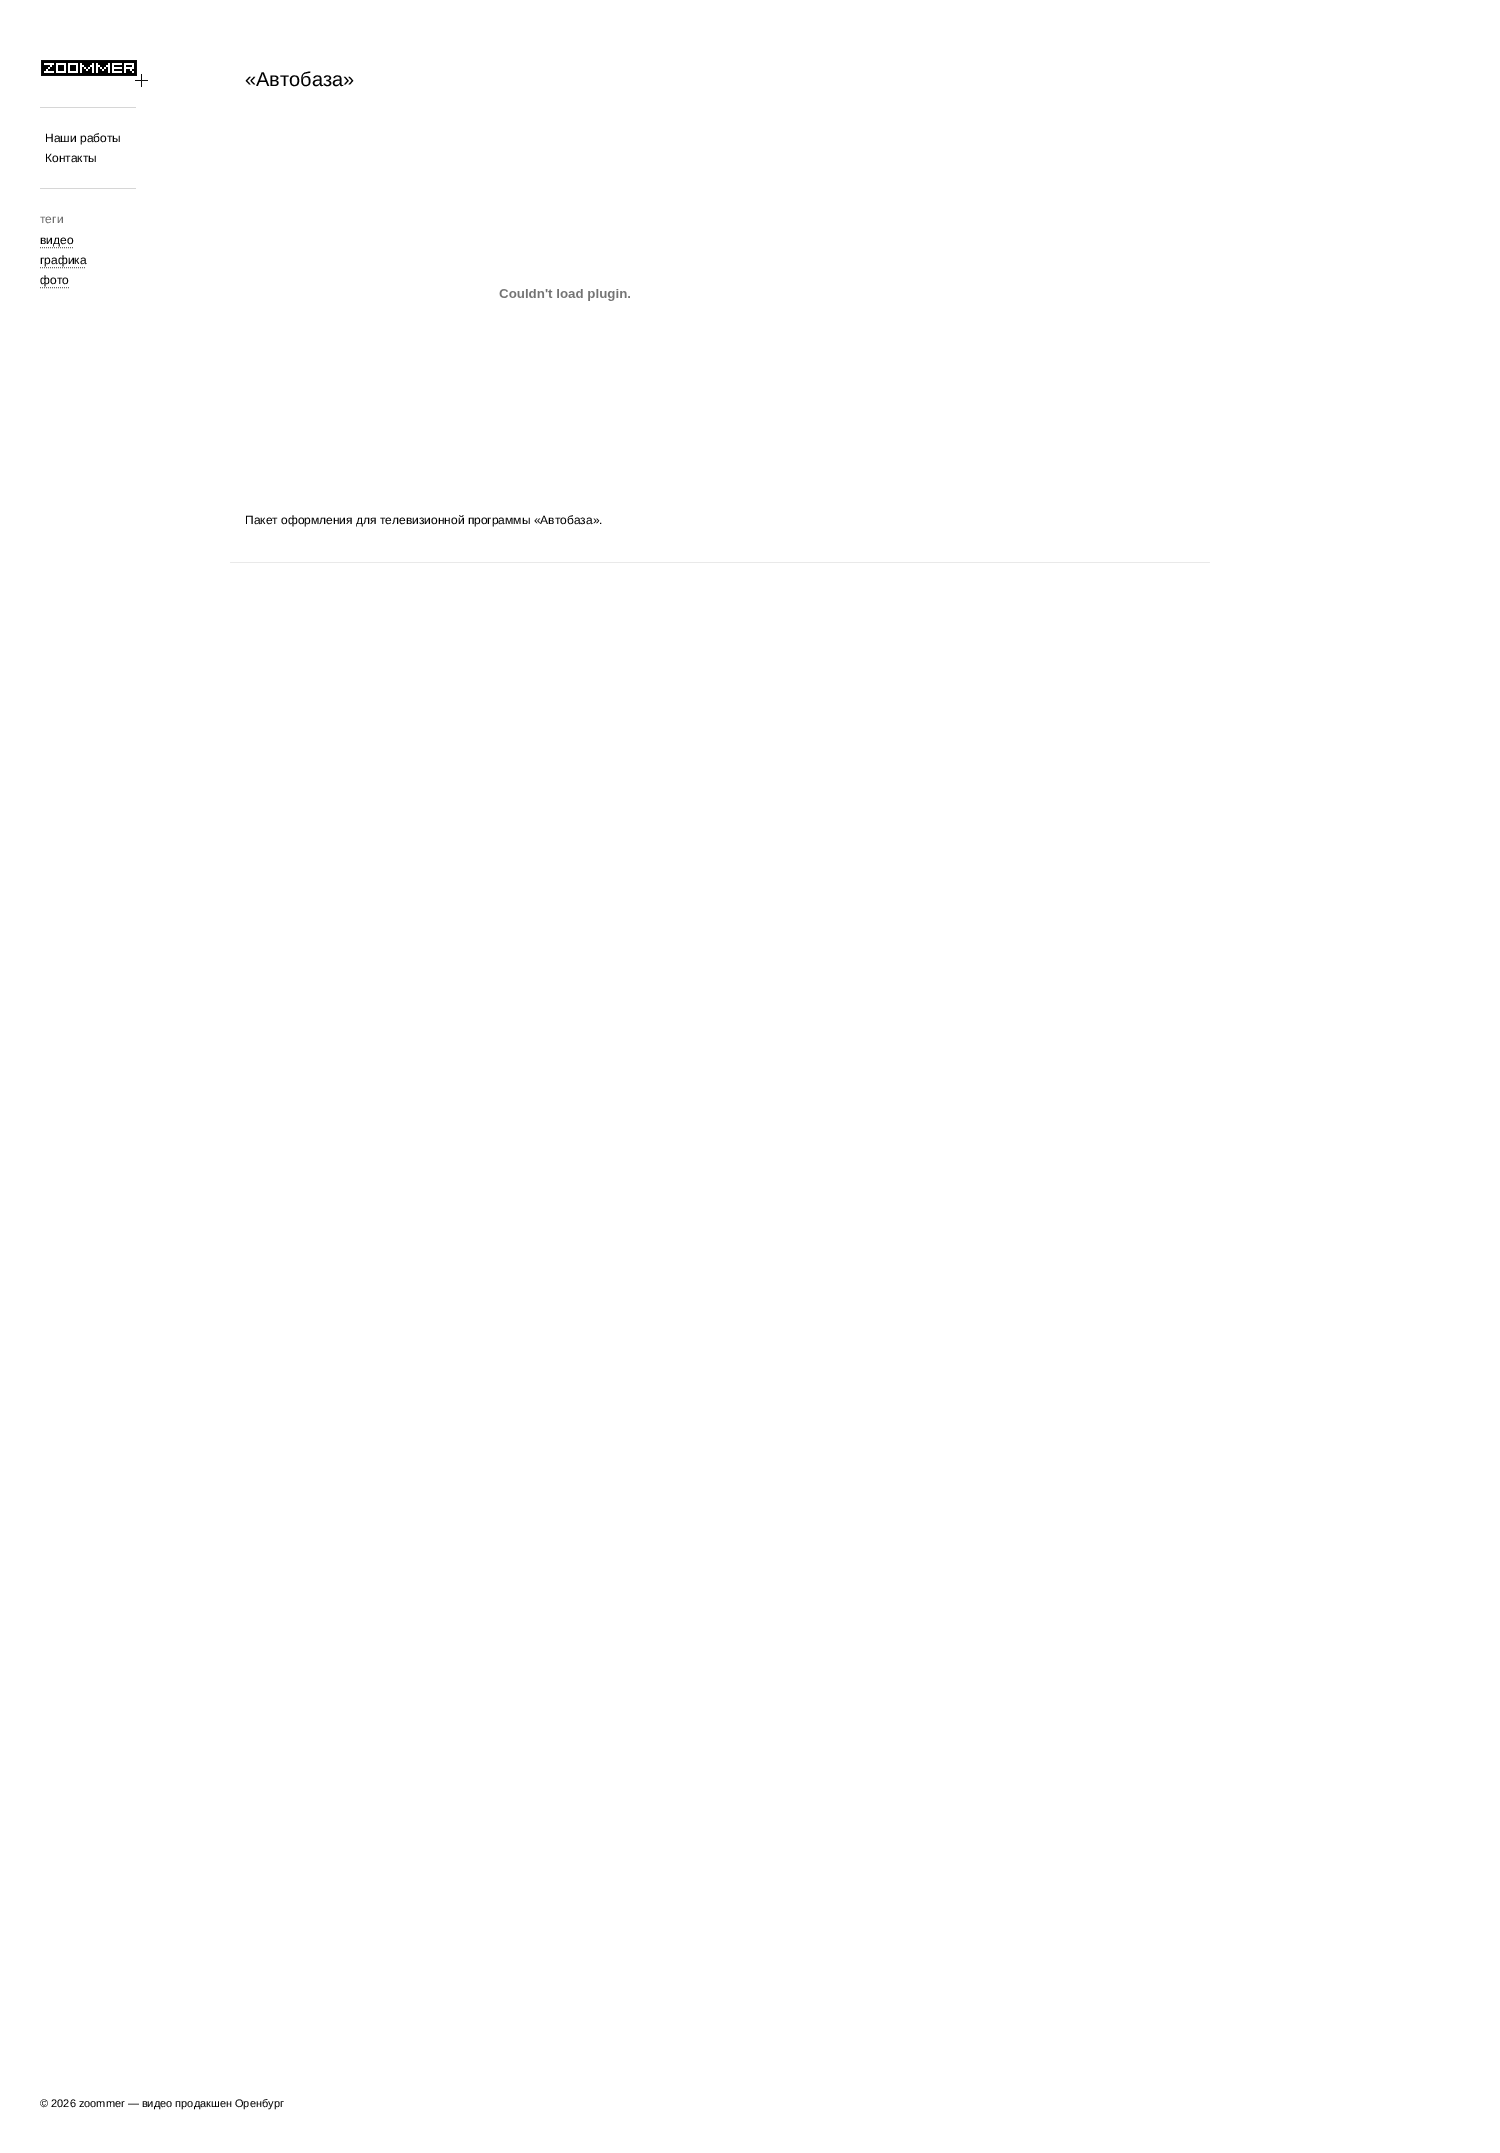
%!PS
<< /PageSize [1500 2153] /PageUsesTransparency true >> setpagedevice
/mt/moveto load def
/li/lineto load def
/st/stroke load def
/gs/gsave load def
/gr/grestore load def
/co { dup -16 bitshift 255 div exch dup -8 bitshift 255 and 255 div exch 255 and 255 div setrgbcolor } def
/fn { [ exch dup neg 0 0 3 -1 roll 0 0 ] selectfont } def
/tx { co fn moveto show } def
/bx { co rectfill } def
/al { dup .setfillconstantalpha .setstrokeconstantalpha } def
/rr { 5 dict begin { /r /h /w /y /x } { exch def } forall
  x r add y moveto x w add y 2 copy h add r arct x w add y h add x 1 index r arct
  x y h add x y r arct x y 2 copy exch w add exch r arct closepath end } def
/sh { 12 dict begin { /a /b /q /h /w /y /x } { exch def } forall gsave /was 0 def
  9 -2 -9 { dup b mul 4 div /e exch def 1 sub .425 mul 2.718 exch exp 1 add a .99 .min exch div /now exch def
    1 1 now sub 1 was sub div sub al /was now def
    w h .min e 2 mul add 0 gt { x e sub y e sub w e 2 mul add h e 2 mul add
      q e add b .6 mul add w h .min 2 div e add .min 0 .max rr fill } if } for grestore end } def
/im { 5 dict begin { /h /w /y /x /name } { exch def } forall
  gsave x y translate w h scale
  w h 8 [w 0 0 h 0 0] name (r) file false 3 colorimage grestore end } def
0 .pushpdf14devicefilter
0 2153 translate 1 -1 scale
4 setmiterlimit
0 0 1500 2153 16#FFFFFF bx
(media/1.raw) 41 60 107 27 im
40 107 96 1 16#D6D6D6 bx
40 188 96 1 16#D6D6D6 bx
16#666666 co
[1 1] 0 setdash
40 247.5 mt 73 247.5 li st
40 267.5 mt 86 267.5 li st
40 287.5 mt 69 287.5 li st
gs
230 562 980 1 rectclip
16#000000 co
230 51 980 512 0 .5 .1 sh
gr
(media/2.raw) 499 289 131 12 im
(Наши работы) 45 142 /LiberationSans-Regular 12 16#000000 tx
(Контакты) 45 162 /LiberationSans-Regular 12 16#000000 tx
(теги) 40 223 /LiberationSans-Regular 12 16#6C6C6C tx
(видео) 40 244 /LiberationSans-Regular 12 16#000000 tx
(графика) 40 264 /LiberationSans-Regular 12 16#000000 tx
(фото) 40 284 /LiberationSans-Regular 12 16#000000 tx
(«Автобаза») 245 86 /LiberationSans-Regular 20 16#000000 tx
(Пакет оформления для телевизионной программы «Автобаза».) 245 524 /LiberationSans-Regular 12 16#000000 tx
(© 2026 zoommer — видео продакшен Оренбург) 40 2107 /LiberationSans-Regular 11 16#000000 tx
.poppdf14devicefilter showpage
